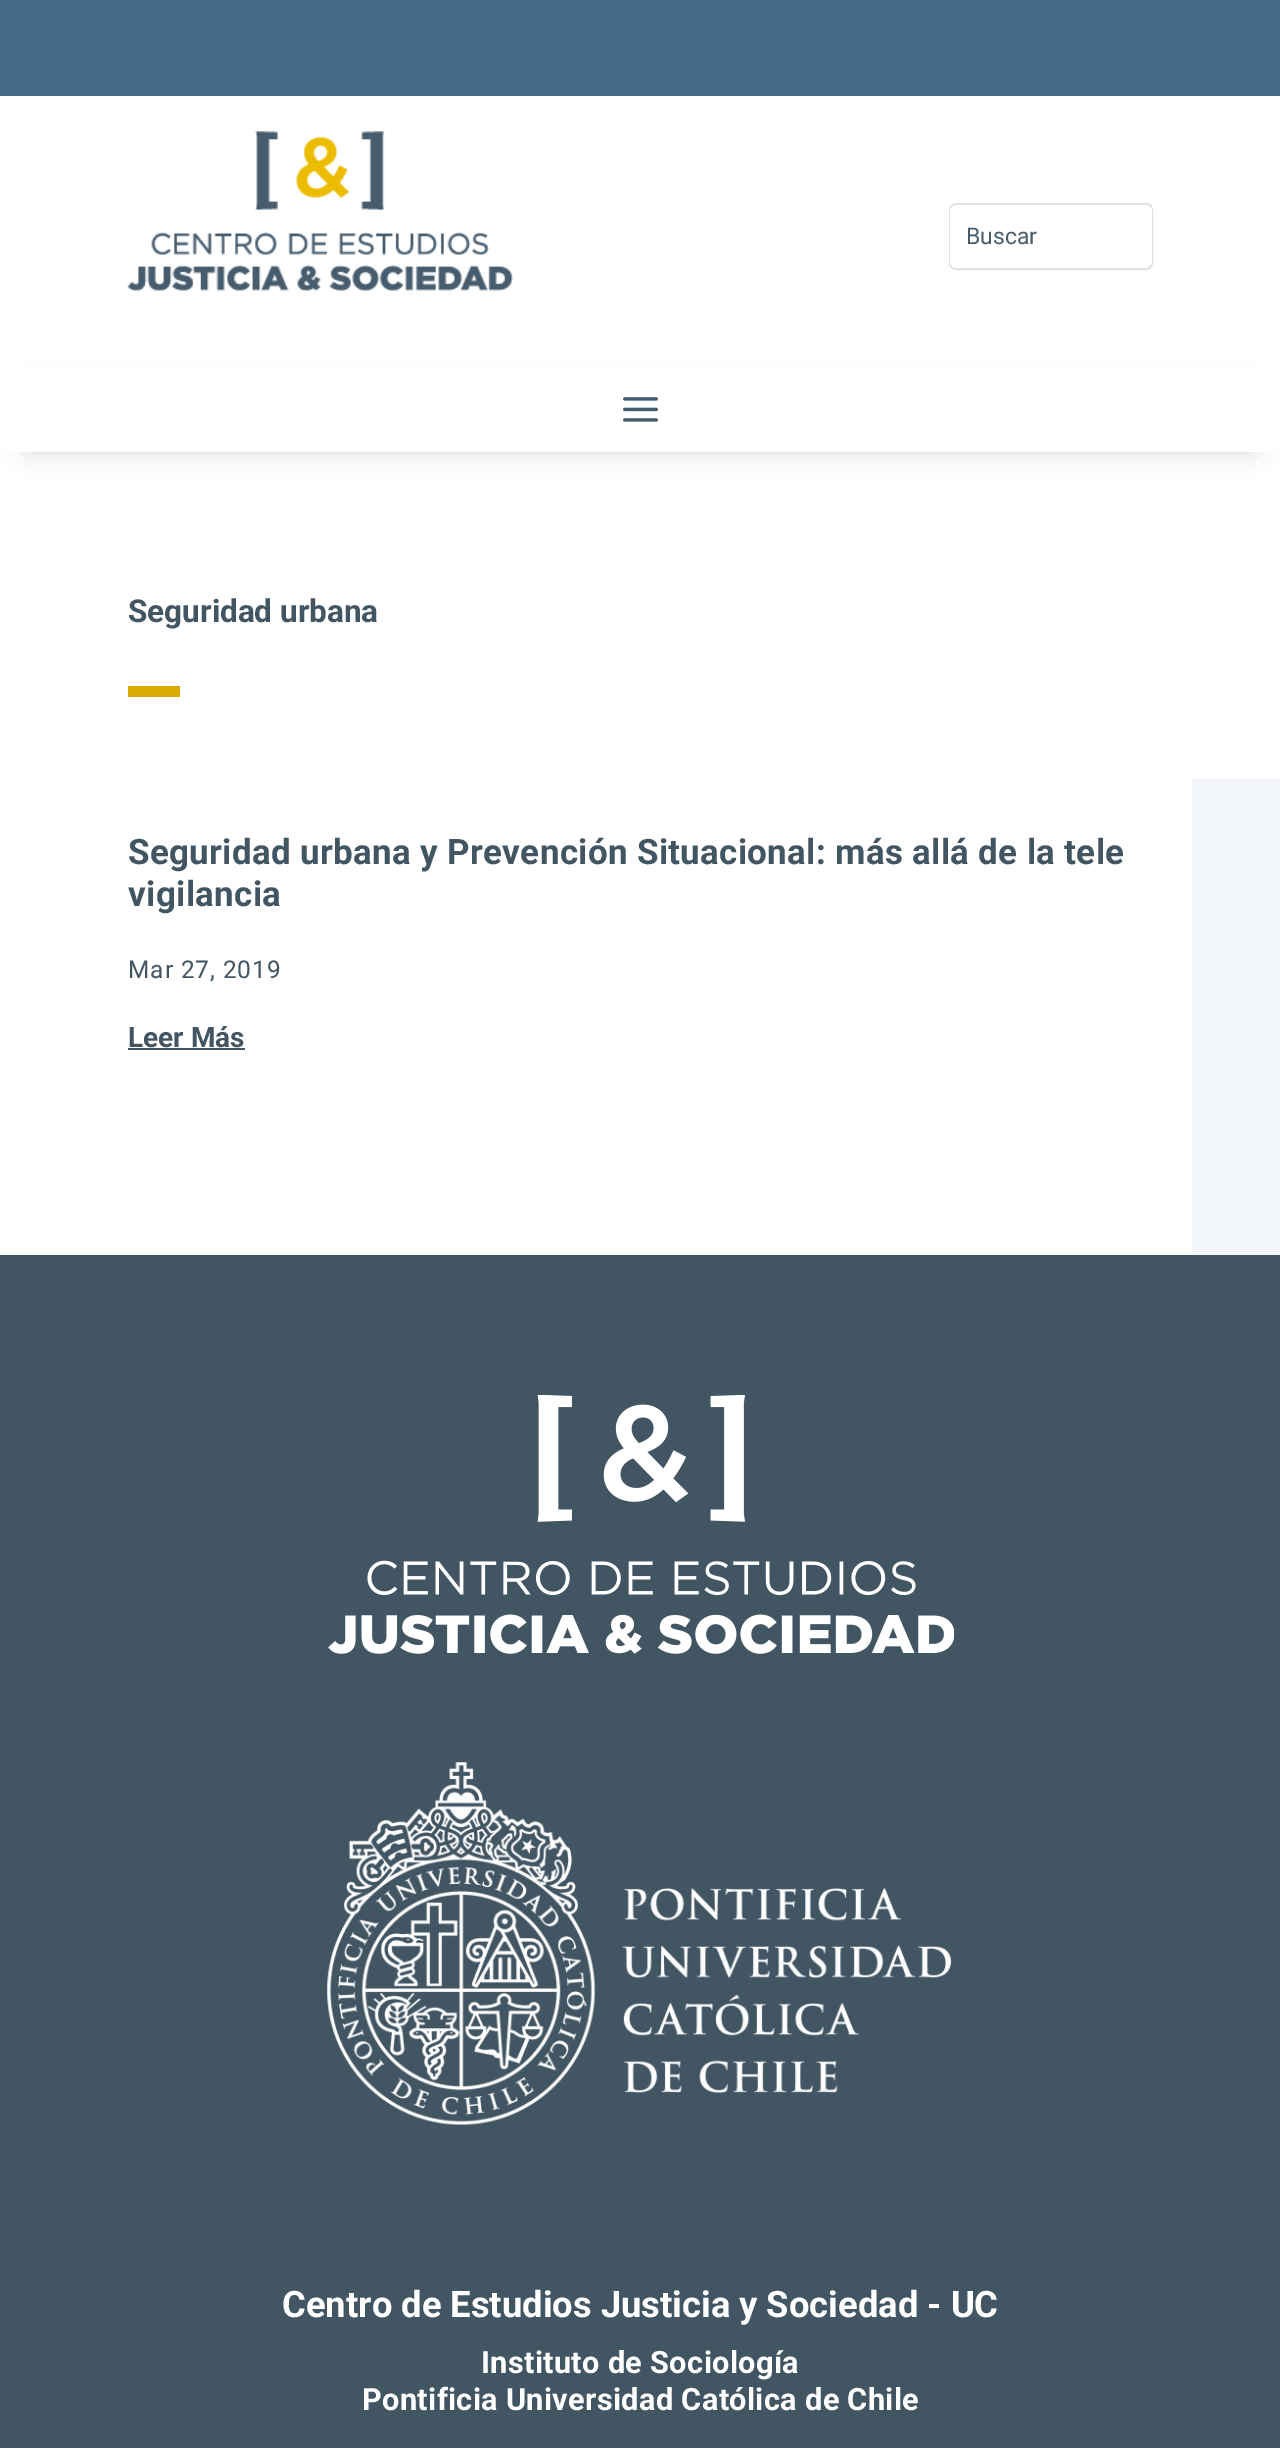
%!PS
<< /PageSize [1280 2448] /PageUsesTransparency true >> setpagedevice
/mt/moveto load def
/fl/fill load def
/st/stroke load def
/lw/setlinewidth load def
/co { dup -16 bitshift 255 div exch dup -8 bitshift 255 and 255 div exch 255 and 255 div setrgbcolor } def
/fn { [ exch dup neg 0 0 3 -1 roll 0 0 ] selectfont } def
/tx { co fn moveto show } def
/bx { co rectfill } def
/al { dup .setfillconstantalpha .setstrokeconstantalpha } def
/rr { 5 dict begin { /r /h /w /y /x } { exch def } forall
  x r add y moveto x w add y 2 copy h add r arct x w add y h add x 1 index r arct
  x y h add x y r arct x y 2 copy exch w add exch r arct closepath end } def
/sh { 12 dict begin { /a /b /q /h /w /y /x } { exch def } forall gsave /was 0 def
  9 -2 -9 { dup b mul 4 div /e exch def 1 sub .425 mul 2.718 exch exp 1 add a .99 .min exch div /now exch def
    1 1 now sub 1 was sub div sub al /was now def
    w h .min e 2 mul add 0 gt { x e sub y e sub w e 2 mul add h e 2 mul add
      q e add b .6 mul add w h .min 2 div e add .min 0 .max rr fill } if } for grestore end } def
/im { 5 dict begin { /h /w /y /x /name } { exch def } forall
  gsave x y translate w h scale
  w h 8 [w 0 0 h 0 0] name (r) file false 3 colorimage grestore end } def
0 .pushpdf14devicefilter
0 2448 translate 1 -1 scale
4 setmiterlimit
0 0 1280 2448 16#FFFFFF bx
0 0 1280 96 16#476A89 bx
(media/1.raw) 127 131 386 160 im
16#E2E2E2 co
2 lw
950 204 202 65 6 rr st
16#FFFFFF co
950 205 202 63 7 rr fl
16#000000 co
30 394 1221 49 0 16 .3 sh
2 365 1277 87 16#FFFFFF bx
(media/2.raw) 623 397 35 25 im
128 686 52 11 16#DAAA00 bx
1192 779 88 476 16#F2F6FA bx
128 1048 117 2 16#425563 bx
0 1255 1280 1193 16#425563 bx
(media/3.raw) 328 1395 626 259 im
(media/4.raw) 327 1762 625 363 im
(Buscar) 966 244 /Roboto-Regular 23 16#475C6D tx
(Seguridad urbana) 128 622 /Roboto-Bold 31.5 16#425563 tx
/Roboto-Bold 35 fn
128 864 mt .32 0 (Seguridad urbana y Prevención Situacional: más allá de la tele) ashow
128 906 mt .32 0 (vigilancia) ashow
/Roboto-Regular 24.5 fn
128 978 mt .9 0 (Mar 27, 2019) ashow
(Leer Más) 128 1047 /Roboto-Bold 28 16#425563 tx
(Centro de Estudios Justicia y Sociedad - UC) 282 2317 /Roboto-Bold 36.4 16#FFFFFF tx
/Roboto-Bold 30.75 fn
481 2373 mt .32 0 (Instituto de Sociología) ashow
362 2410 mt .32 0 (Pontificia Universidad Católica de Chile) ashow
.poppdf14devicefilter showpage
